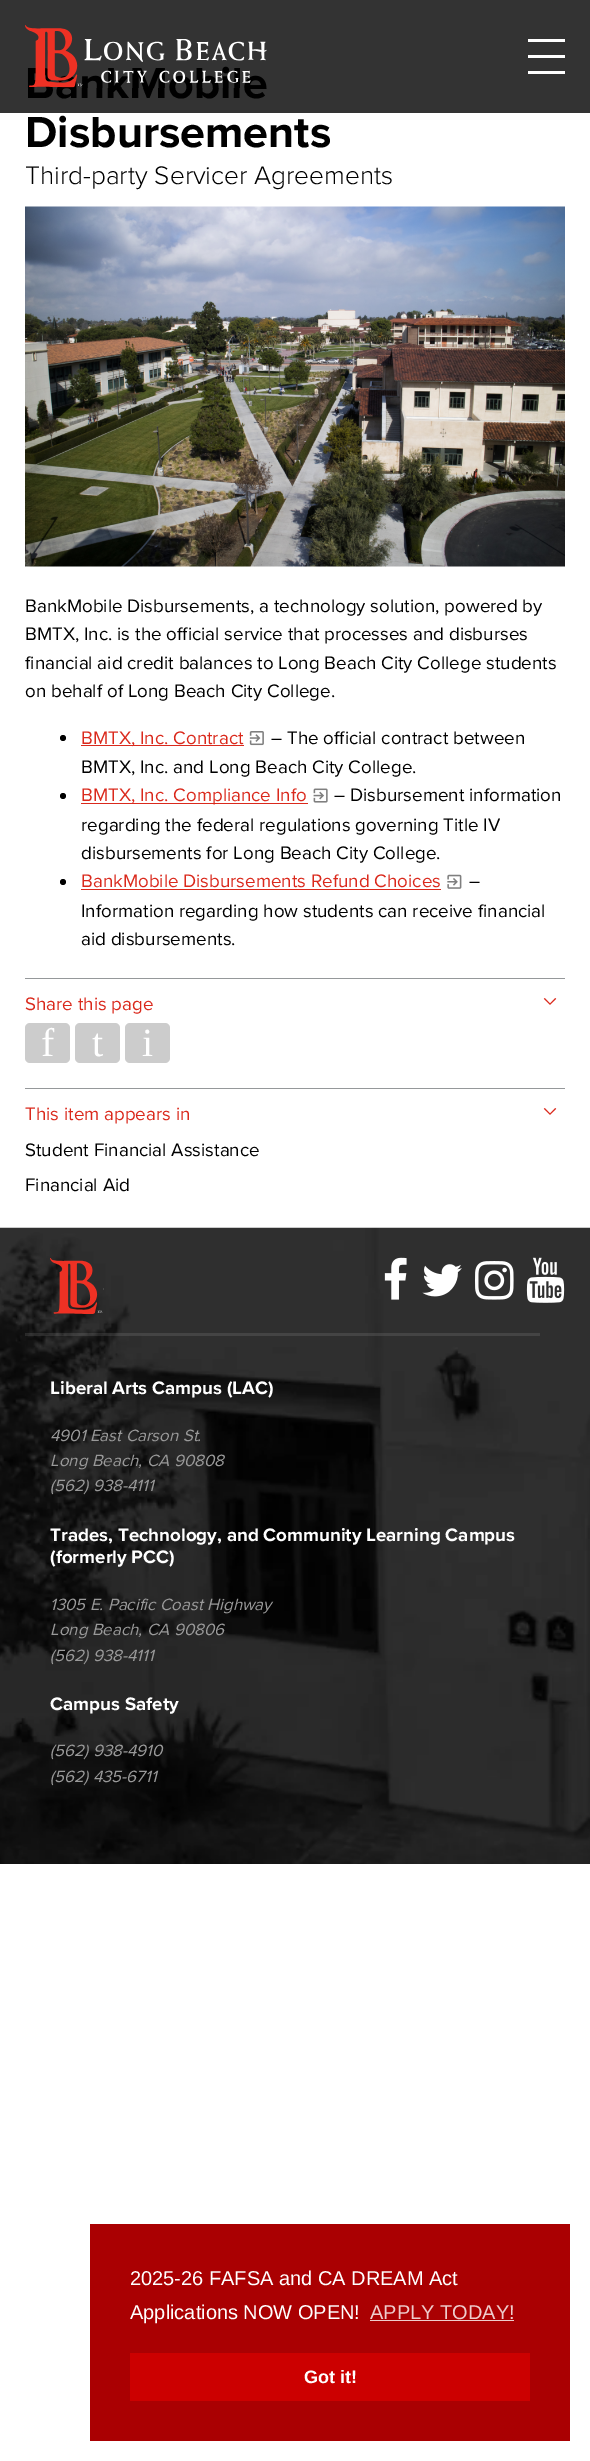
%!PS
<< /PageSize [590 2461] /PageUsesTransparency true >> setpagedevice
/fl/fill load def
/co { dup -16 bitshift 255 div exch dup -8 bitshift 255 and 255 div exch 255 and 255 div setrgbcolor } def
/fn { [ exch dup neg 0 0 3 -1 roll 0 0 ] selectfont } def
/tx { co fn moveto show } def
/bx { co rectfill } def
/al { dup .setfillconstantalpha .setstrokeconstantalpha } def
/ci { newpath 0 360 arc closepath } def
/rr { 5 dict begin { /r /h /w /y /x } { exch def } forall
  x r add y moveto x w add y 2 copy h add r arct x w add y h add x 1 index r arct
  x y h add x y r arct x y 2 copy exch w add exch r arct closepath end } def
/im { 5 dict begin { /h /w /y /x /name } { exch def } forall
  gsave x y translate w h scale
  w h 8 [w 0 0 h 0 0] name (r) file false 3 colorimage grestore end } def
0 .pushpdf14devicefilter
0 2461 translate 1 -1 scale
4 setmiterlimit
0 0 590 2461 16#FFFFFF bx
0 0 590 113 16#333333 bx
528 39 37 3 16#FFFFFF bx
528 55 37 3 16#FFFFFF bx
528 71 37 3 16#FFFFFF bx
(media/2.raw) 25 206 540 361 im
16#000000 co
63 738 3 ci fl
81 745 163 1 16#DA291C bx
(media/3.raw) 249 731 15 15 im
16#000000 co
63 796 3 ci fl
81 803 227 1 16#DA291C bx
(media/4.raw) 313 788 15 15 im
16#000000 co
63 882 3 ci fl
81 889 360 1 16#DA291C bx
(media/5.raw) 447 874 15 15 im
25 978 540 1 16#95989A bx
(media/6.raw) 543 998 14 7 im
16#CCCCCC co
25 1023 45 40 5 rr fl
75 1023 45 40 5 rr fl
125 1023 45 40 5 rr fl
25 1088 540 1 16#95989A bx
(media/6.raw) 543 1108 14 7 im
(media/7.raw) 0 1227 590 637 im
(media/8.raw) 50 1258 54 56 im
(media/9.raw) 384 1257 23 43 im
(media/10.raw) 422 1264 40 33 im
(media/11.raw) 475 1261 39 39 im
(media/12.raw) 526 1257 39 46 im
0.1 al
25 1333 515 1 16#FFFFFF bx
25 1334 515 1 16#FFFFFF bx
25 1335 515 1 16#FFFFFF bx
1 al
90 2224 480 217 16#AA0002 bx
370 2320 144 1 16#EECCCC bx
130 2353 400 48 16#CC0000 bx
(BankMobile) 25 98 /ProximaNova-Bold 45 16#000000 tx
(media/1.raw) 25 25 242 63 im
(Disbursements) 25 147 /ProximaNova-Bold 45 16#000000 tx
(Third-party Servicer Agreements) 25 184 /ProximaNova-Light 26.25 16#000000 tx
(BankMobile Disbursements, a technology solution, powered by) 25 612 /ProximaNova-Regular 18.75 16#000000 tx
(BMTX, Inc. is the official service that processes and disburses) 25 640 /ProximaNova-Regular 18.75 16#000000 tx
(financial aid credit balances to Long Beach City College students) 25 669 /ProximaNova-Regular 18.75 16#000000 tx
(on behalf of Long Beach City College.) 25 697 /ProximaNova-Regular 18.75 16#000000 tx
(BMTX, Inc. Contract) 81 744 /ProximaNova-Regular 18.75 16#DA291C tx
(– The official contract between) 271 744 /ProximaNova-Regular 18.75 16#000000 tx
(BMTX, Inc. and Long Beach City College.) 81 773 /ProximaNova-Regular 18.75 16#000000 tx
(BMTX, Inc. Compliance Info) 81 801 /ProximaNova-Regular 18.75 16#DA291C tx
(– Disbursement information) 334 801 /ProximaNova-Regular 18.75 16#000000 tx
(regarding the federal regulations governing Title IV) 81 831 /ProximaNova-Regular 18.75 16#000000 tx
(disbursements for Long Beach City College.) 81 859 /ProximaNova-Regular 18.75 16#000000 tx
(BankMobile Disbursements Refund Choices) 81 887 /ProximaNova-Regular 18.75 16#DA291C tx
(–) 469 887 /ProximaNova-Regular 18.75 16#000000 tx
(Information regarding how students can receive financial) 81 917 /ProximaNova-Regular 18.75 16#000000 tx
(aid disbursements.) 81 945 /ProximaNova-Regular 18.75 16#000000 tx
(Share this page) 25 1010 /ProximaNova-Regular 18.75 16#DA291C tx
(f) 41 1056 /LiberationSerif-Regular 40 16#FFFFFF tx
(t) 92 1056 /LiberationSerif-Regular 40 16#FFFFFF tx
(i) 142 1056 /LiberationSerif-Regular 40 16#FFFFFF tx
(This item appears in) 25 1120 /ProximaNova-Regular 18.75 16#DA291C tx
(Student Financial Assistance) 25 1156 /ProximaNova-Regular 18.75 16#000000 tx
(Financial Aid) 25 1191 /ProximaNova-Regular 18.75 16#000000 tx
(Liberal Arts Campus \(LAC\)) 50 1394 /ProximaNova-Bold 18.75 16#FFFFFF tx
(4901 East Carson St.) 50 1441 /ProximaNova-Italic 16.9 16#999999 tx
(Long Beach, CA 90808) 50 1466 /ProximaNova-Italic 16.9 16#999999 tx
(\(562\) 938-4111) 50 1491 /ProximaNova-Italic 16.9 16#999999 tx
(Trades, Technology, and Community Learning Campus) 50 1541 /ProximaNova-Bold 18.75 16#FFFFFF tx
(\(formerly PCC\)) 50 1563 /ProximaNova-Bold 18.75 16#FFFFFF tx
(1305 E. Pacific Coast Highway) 50 1610 /ProximaNova-Italic 16.9 16#999999 tx
(Long Beach, CA 90806) 50 1635 /ProximaNova-Italic 16.9 16#999999 tx
(\(562\) 938-4111) 50 1661 /ProximaNova-Italic 16.9 16#999999 tx
(Campus Safety) 50 1710 /ProximaNova-Bold 18.75 16#FFFFFF tx
(\(562\) 938-4910) 50 1756 /ProximaNova-Italic 16.9 16#999999 tx
(\(562\) 435-6711) 50 1782 /ProximaNova-Italic 16.9 16#999999 tx
(2025-26 FAFSA and CA DREAM Act) 130 2285 /LiberationSans-Regular 20 16#FFFFFF tx
(Applications NOW OPEN!) 130 2319 /LiberationSans-Regular 20 16#FFFFFF tx
(APPLY TODAY!) 370 2319 /LiberationSans-Regular 20 16#EECCCC tx
(Got it!) 304 2383 /LiberationSans-Bold 18 16#FFFFFF tx
.poppdf14devicefilter showpage
